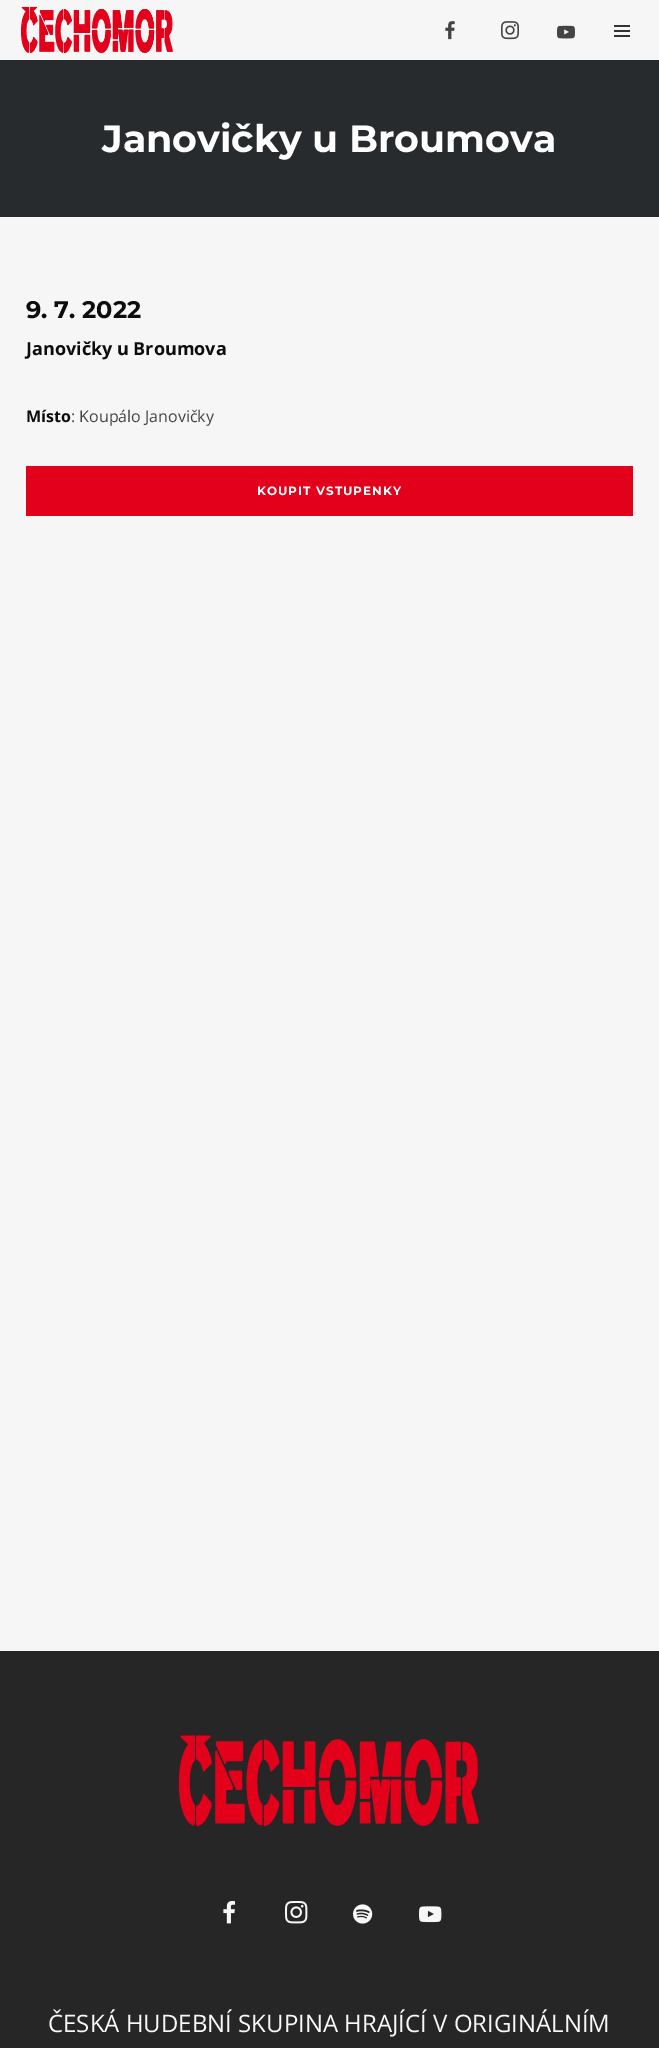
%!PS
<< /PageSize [659 2048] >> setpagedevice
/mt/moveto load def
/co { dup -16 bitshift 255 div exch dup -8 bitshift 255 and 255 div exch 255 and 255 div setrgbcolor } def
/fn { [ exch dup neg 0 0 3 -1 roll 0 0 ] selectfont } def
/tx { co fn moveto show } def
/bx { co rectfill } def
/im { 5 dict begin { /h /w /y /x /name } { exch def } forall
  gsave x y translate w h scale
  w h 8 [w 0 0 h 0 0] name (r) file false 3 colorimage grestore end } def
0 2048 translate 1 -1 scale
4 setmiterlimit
0 0 659 2048 16#F6F6F6 bx
(media/1.raw) 21 6 152 47 im
(media/2.raw) 445 21 10 19 im
(media/3.raw) 501 21 18 19 im
(media/4.raw) 557 25 18 14 im
614 25 16 2 16#333333 bx
614 30 16 2 16#333333 bx
614 35 16 2 16#333333 bx
0 60 659 157 16#282B2D bx
26 466 607 50 16#E2001A bx
0 1651 659 397 16#262626 bx
(media/5.raw) 179 1735 300 91 im
(media/6.raw) 223 1901 12 23 im
(media/7.raw) 285 1901 23 23 im
(media/8.raw) 353 1904 20 20 im
(media/9.raw) 419 1906 23 17 im
(Janovičky u Broumova) 102 152 /Montserrat-Bold 38 16#FFFFFF tx
(9. 7. 2022) 26 318 /Montserrat-Bold 24 16#0D0D0D tx
(Janovičky u Broumova) 26 355 /OpenSans-Bold 18 16#0D0D0D tx
(Místo) 26 422 /OpenSans-Bold 16 16#0D0D0D tx
(: Koupálo Janovičky) 71 422 /OpenSans-Regular 16 16#444444 tx
/Montserrat-Bold 12 fn
16#FFFFFF co
257 495 mt 1 0 (KOUPIT VSTUPENKY) ashow
(ČESKÁ HUDEBNÍ SKUPINA HRAJÍCÍ V ORIGINÁLNÍM) 48 2032 /OpenSans-Regular 24 16#F7F7F7 tx
showpage
